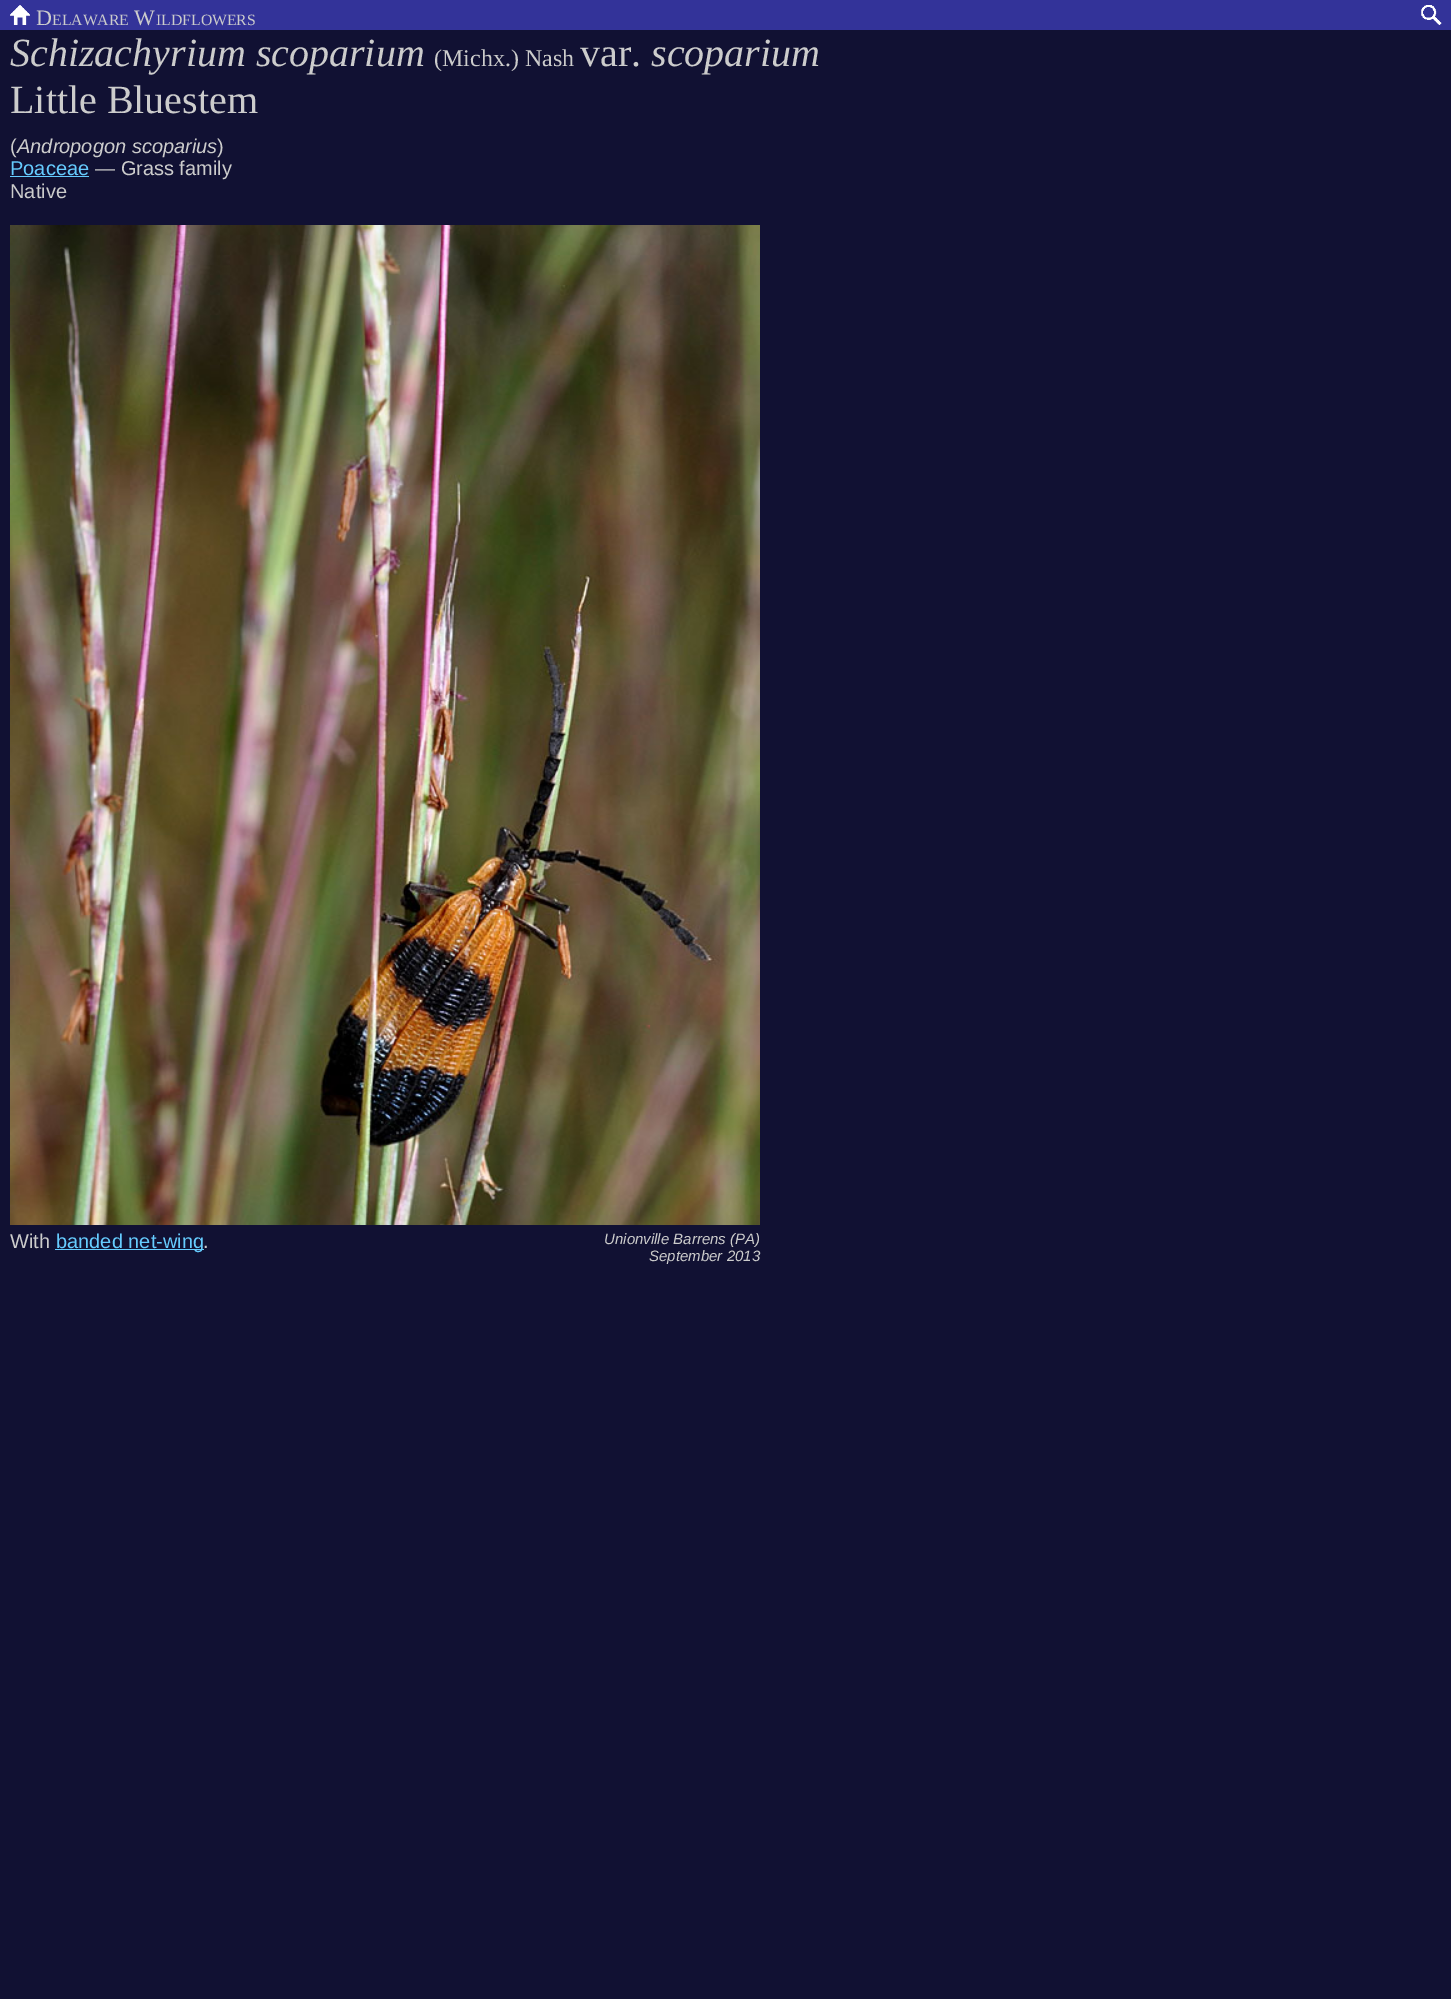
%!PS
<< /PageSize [1451 1999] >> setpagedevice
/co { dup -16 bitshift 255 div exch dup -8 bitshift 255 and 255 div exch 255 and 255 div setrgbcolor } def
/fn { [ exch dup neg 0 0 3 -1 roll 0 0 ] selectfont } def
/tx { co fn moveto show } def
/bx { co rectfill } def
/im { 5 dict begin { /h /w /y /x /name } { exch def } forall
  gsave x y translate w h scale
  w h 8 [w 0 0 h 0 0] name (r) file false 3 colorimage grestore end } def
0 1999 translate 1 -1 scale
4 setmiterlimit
0 0 1451 1999 16#111133 bx
0 0 1451 30 16#333399 bx
(media/1.raw) 10 5 20 20 im
(media/2.raw) 1421 5 21 20 im
10 176 79 1 16#66CCFF bx
(media/3.raw) 10 225 750 1000 im
55 1249 149 1 16#66CCFF bx
(D) 36 25 /LiberationSerif-Regular 22 16#CCCCCC tx
(ELAWARE) 52 25 /LiberationSerif-Regular 15.75 16#CCCCCC tx
(W) 134 25 /LiberationSerif-Regular 22 16#CCCCCC tx
(ILDFLOWERS) 156 25 /LiberationSerif-Regular 15.75 16#CCCCCC tx
(Schizachyrium scoparium) 10 66 /LiberationSerif-Italic 40 16#CCCCCC tx
(\(Michx.\) Nash) 434 66 /LiberationSerif-Regular 24 16#CCCCCC tx
(var.) 580 66 /LiberationSerif-Regular 40 16#CCCCCC tx
(scoparium) 651 66 /LiberationSerif-Italic 40 16#CCCCCC tx
(Little Bluestem) 10 113 /LiberationSerif-Regular 40 16#CCCCCC tx
(\() 10 153 /LiberationSans-Regular 20 16#CCCCCC tx
(Andropogon scoparius) 17 153 /LiberationSans-Italic 20 16#CCCCCC tx
(\)) 217 153 /LiberationSans-Regular 20 16#CCCCCC tx
(Poaceae) 10 175 /LiberationSans-Regular 20 16#66CCFF tx
(— Grass family) 95 175 /LiberationSans-Regular 20 16#CCCCCC tx
(Native) 10 198 /LiberationSans-Regular 20 16#CCCCCC tx
(With) 10 1248 /LiberationSans-Regular 20 16#CCCCCC tx
(banded net-wing) 56 1248 /LiberationSans-Regular 20 16#66CCFF tx
(.) 203 1248 /LiberationSans-Regular 20 16#CCCCCC tx
(Unionville Barrens \(PA\)) 604 1244 /LiberationSans-Italic 15 16#CCCCCC tx
(September 2013) 649 1261 /LiberationSans-Italic 15 16#CCCCCC tx
showpage
